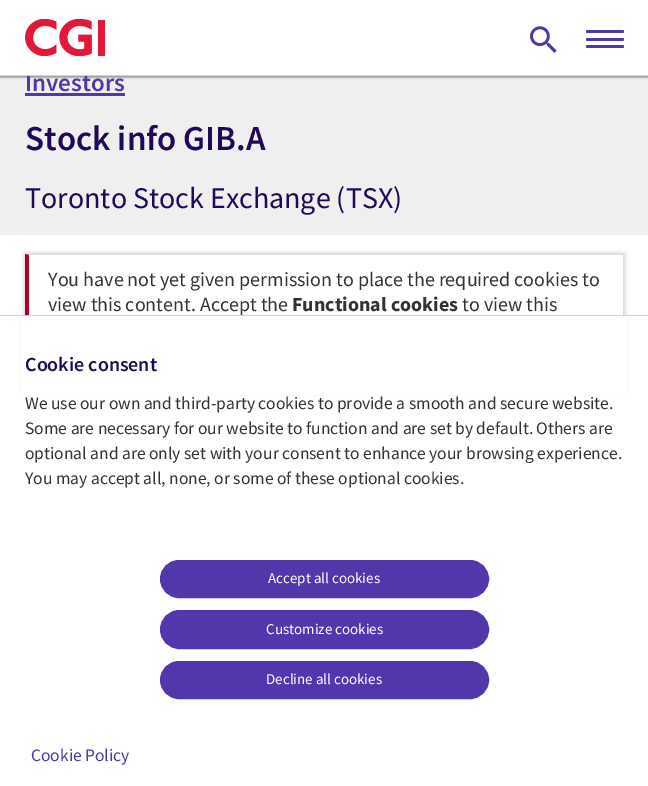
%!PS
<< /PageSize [648 786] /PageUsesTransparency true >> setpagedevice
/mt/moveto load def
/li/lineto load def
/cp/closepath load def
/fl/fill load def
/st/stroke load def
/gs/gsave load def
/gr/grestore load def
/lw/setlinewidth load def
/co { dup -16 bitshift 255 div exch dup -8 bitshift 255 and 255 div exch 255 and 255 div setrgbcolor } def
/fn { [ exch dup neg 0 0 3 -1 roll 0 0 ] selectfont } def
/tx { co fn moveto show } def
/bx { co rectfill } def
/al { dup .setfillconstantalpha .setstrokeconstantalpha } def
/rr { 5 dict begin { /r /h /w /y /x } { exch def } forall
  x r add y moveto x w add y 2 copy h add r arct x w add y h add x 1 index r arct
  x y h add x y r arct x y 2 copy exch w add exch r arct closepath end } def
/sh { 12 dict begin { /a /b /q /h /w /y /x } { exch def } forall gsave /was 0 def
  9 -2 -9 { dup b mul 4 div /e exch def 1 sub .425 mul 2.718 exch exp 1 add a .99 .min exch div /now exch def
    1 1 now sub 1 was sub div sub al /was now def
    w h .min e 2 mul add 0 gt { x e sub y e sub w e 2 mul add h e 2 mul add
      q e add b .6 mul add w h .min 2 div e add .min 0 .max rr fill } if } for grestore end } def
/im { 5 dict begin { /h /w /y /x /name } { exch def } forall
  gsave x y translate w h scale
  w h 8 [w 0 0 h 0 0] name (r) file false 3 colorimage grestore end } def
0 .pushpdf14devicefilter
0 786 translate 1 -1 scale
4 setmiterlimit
0 0 648 786 16#FFFFFF bx
0 76 648 159 16#EFEFEF bx
16#000000 co
0 3 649 73 0 .5 .25 sh
0 1 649 77 0 .5 .25 sh
25 93 100 3 16#5236AB bx
gs
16 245 mt 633 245 li 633 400 li 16 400 li cp 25 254 mt 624 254 li 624 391 li 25 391 li cp eoclip newpath
16#000000 co
25 254 599 137 0 2.5 .25 sh
gr
16#DDDDDD co
25 254 mt 624 254 li 622 255 li 29 255 li cp fl
623 254 1 61 16#DDDDDD bx
16#B00020 co
25 391 mt 25 254 li 29 255 li 29 390 li cp fl
21 316 607 79 16#FFFFFF bx
16#5236AB co
161.5 561.5 326 35 17.5 rr gs fl gr
3 lw
st
161.5 611.5 326 36 18 rr gs fl gr
st
161.5 662.5 326 35 17.5 rr gs fl gr
st
(Investors) 25 91 /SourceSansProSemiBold-SemiBold 25 16#5236AB tx
0 0 648 75 16#FFFFFF bx
16#5236AB co
586 30 38 3 1.5 rr fl
586 38 38 3 1.5 rr fl
586 45 38 3 1.5 rr fl
(media/2.raw) 530 26 27 27 im
(media/1.raw) 25 19 80 37 im
0 75 648 1 16#D2D2D2 bx
(Stock info GIB.A) 25 150 /SourceSansProSemiBold-SemiBold 35 16#200A58 tx
(Toronto Stock Exchange \(TSX\)) 25 208 /SourceSansPro-Regular 30 16#200A58 tx
(You have not yet given permission to place the required cookies to) 48 286 /SourceSansPro-Regular 20 16#333333 tx
(view this content. Accept the) 48 311 /SourceSansPro-Regular 20 16#333333 tx
(Functional cookies) 292 311 /SourceSansPro-Bold 20 16#333333 tx
(to view this) 462 311 /SourceSansPro-Regular 20 16#333333 tx
0 315 648 1 16#D2D2D2 bx
(Cookie consent) 25 371 /SourceSansProSemiBold-SemiBold 20 16#200A58 tx
(We use our own and third-party cookies to provide a smooth and secure website.) 25 409 /SourceSansPro-Regular 17.5 16#333333 tx
(Some are necessary for our website to function and are set by default. Others are) 25 434 /SourceSansPro-Regular 17.5 16#333333 tx
(optional and are only set with your consent to enhance your browsing experience.) 25 459 /SourceSansPro-Regular 17.5 16#333333 tx
(You may accept all, none, or some of these optional cookies.) 25 484 /SourceSansPro-Regular 17.5 16#333333 tx
(Accept all cookies) 268 583 /SourceSansPro-Regular 15 16#FFFFFF tx
(Customize cookies) 266 634 /SourceSansPro-Regular 15 16#FFFFFF tx
(Decline all cookies) 266 684 /SourceSansPro-Regular 15 16#FFFFFF tx
(Cookie Policy) 31 761 /SourceSansPro-Regular 17.5 16#5236AB tx
.poppdf14devicefilter showpage
